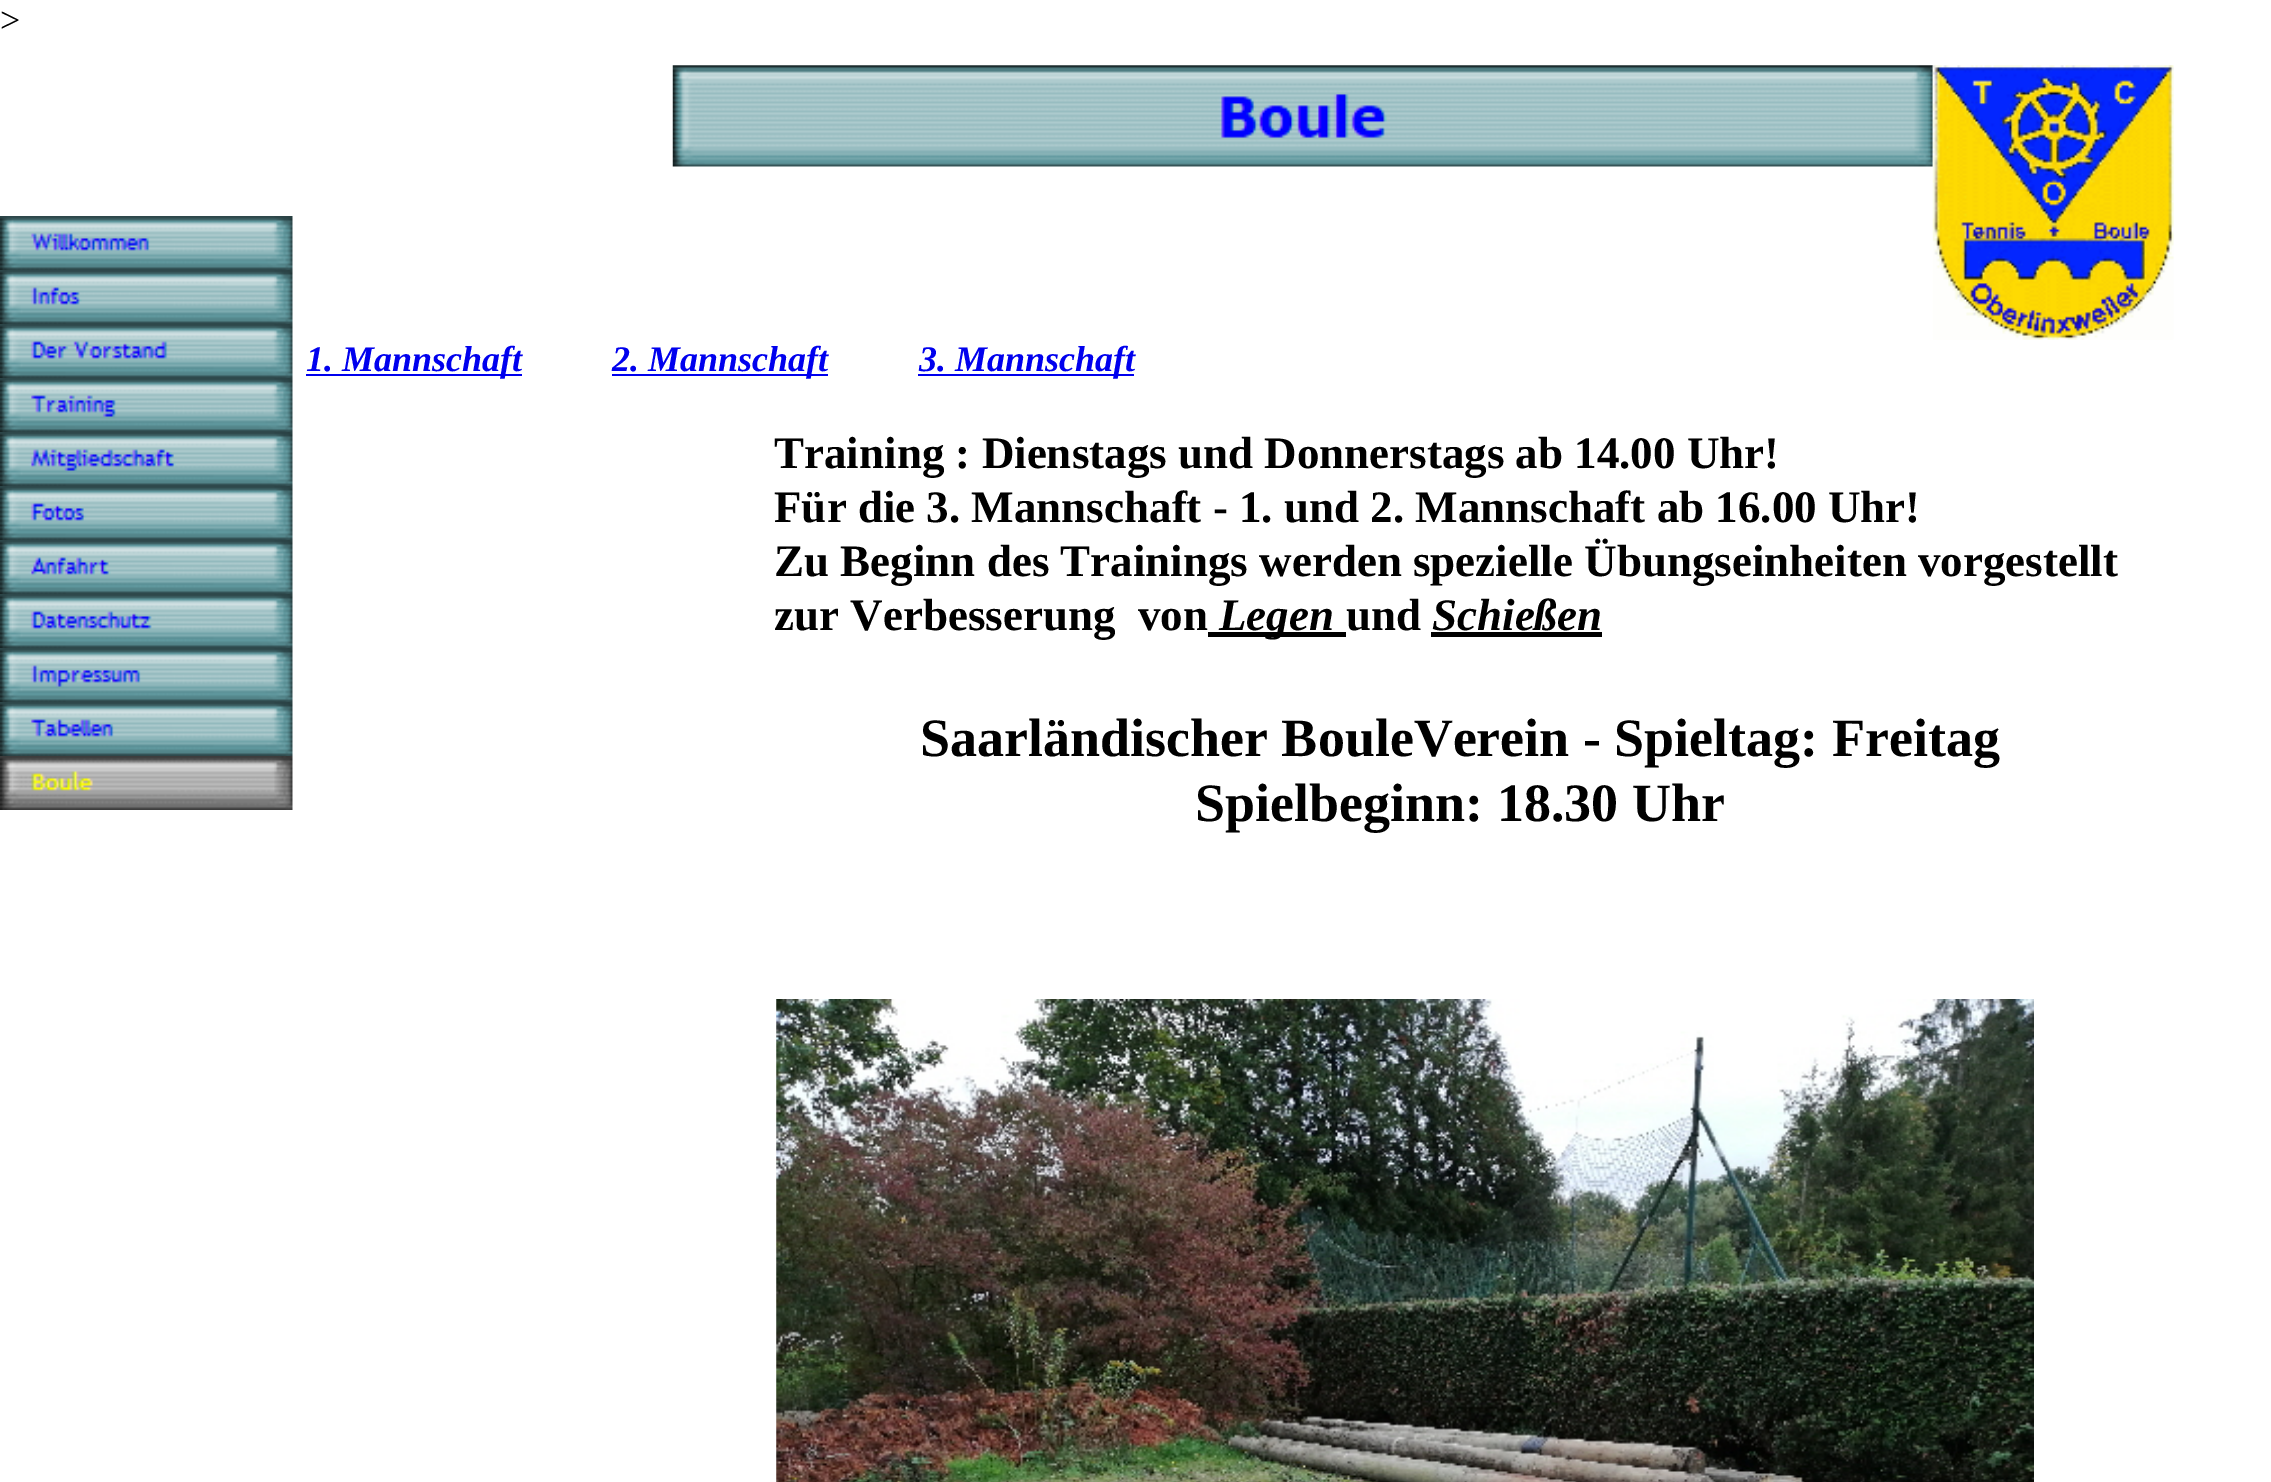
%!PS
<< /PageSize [2271 1482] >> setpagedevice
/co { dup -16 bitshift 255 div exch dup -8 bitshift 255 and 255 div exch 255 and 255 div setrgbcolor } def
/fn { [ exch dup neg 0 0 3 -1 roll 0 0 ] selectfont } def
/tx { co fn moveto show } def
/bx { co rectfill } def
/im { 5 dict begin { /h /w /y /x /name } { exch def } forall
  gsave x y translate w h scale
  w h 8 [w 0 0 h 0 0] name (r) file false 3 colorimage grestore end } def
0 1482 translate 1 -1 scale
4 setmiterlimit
0 0 2271 1482 16#FFFFFF bx
(media/1.raw) 0 216 293 54 im
(media/2.raw) 0 270 293 54 im
(media/3.raw) 0 324 293 54 im
(media/4.raw) 0 378 293 54 im
(media/5.raw) 0 432 293 54 im
(media/6.raw) 0 486 293 54 im
(media/7.raw) 0 540 293 54 im
(media/8.raw) 0 594 293 54 im
(media/9.raw) 0 648 293 54 im
(media/10.raw) 0 702 293 54 im
(media/11.raw) 0 756 293 54 im
(media/12.raw) 672 65 1261 102 im
(media/13.raw) 1932 65 242 275 im
306 374 216 2 16#0000EE bx
612 374 216 2 16#0000EE bx
918 374 216 2 16#0000EE bx
1208 632 138 5 16#000000 bx
1431 632 171 5 16#000000 bx
(media/14.raw) 776 999 1258 483 im
(>) 0 32 /LiberationSerif-Regular 36 16#000000 tx
(1. Mannschaft) 306 371 /LiberationSerif-BoldItalic 36 16#0000EE tx
(2. Mannschaft) 612 371 /LiberationSerif-BoldItalic 36 16#0000EE tx
(3. Mannschaft) 919 371 /LiberationSerif-BoldItalic 36 16#0000EE tx
(Training : Dienstags und Donnerstags ab 14.00 Uhr!) 774 468 /LiberationSerif-Bold 45 16#000000 tx
(Für die 3. Mannschaft - 1. und 2. Mannschaft ab 16.00 Uhr!) 774 522 /LiberationSerif-Bold 45 16#000000 tx
(Zu Beginn des Trainings werden spezielle Übungseinheiten vorgestellt) 774 576 /LiberationSerif-Bold 45 16#000000 tx
(zur Verbesserung  von) 774 630 /LiberationSerif-Bold 45 16#000000 tx
(Legen) 1219 630 /LiberationSerif-BoldItalic 45 16#000000 tx
(und) 1346 630 /LiberationSerif-Bold 45 16#000000 tx
(Schießen) 1432 630 /LiberationSerif-BoldItalic 45 16#000000 tx
(Saarländischer BouleVerein - Spieltag: Freitag) 920 756 /LiberationSerif-Bold 54 16#000000 tx
(Spielbeginn: 18.30 Uhr) 1195 821 /LiberationSerif-Bold 54 16#000000 tx
showpage
